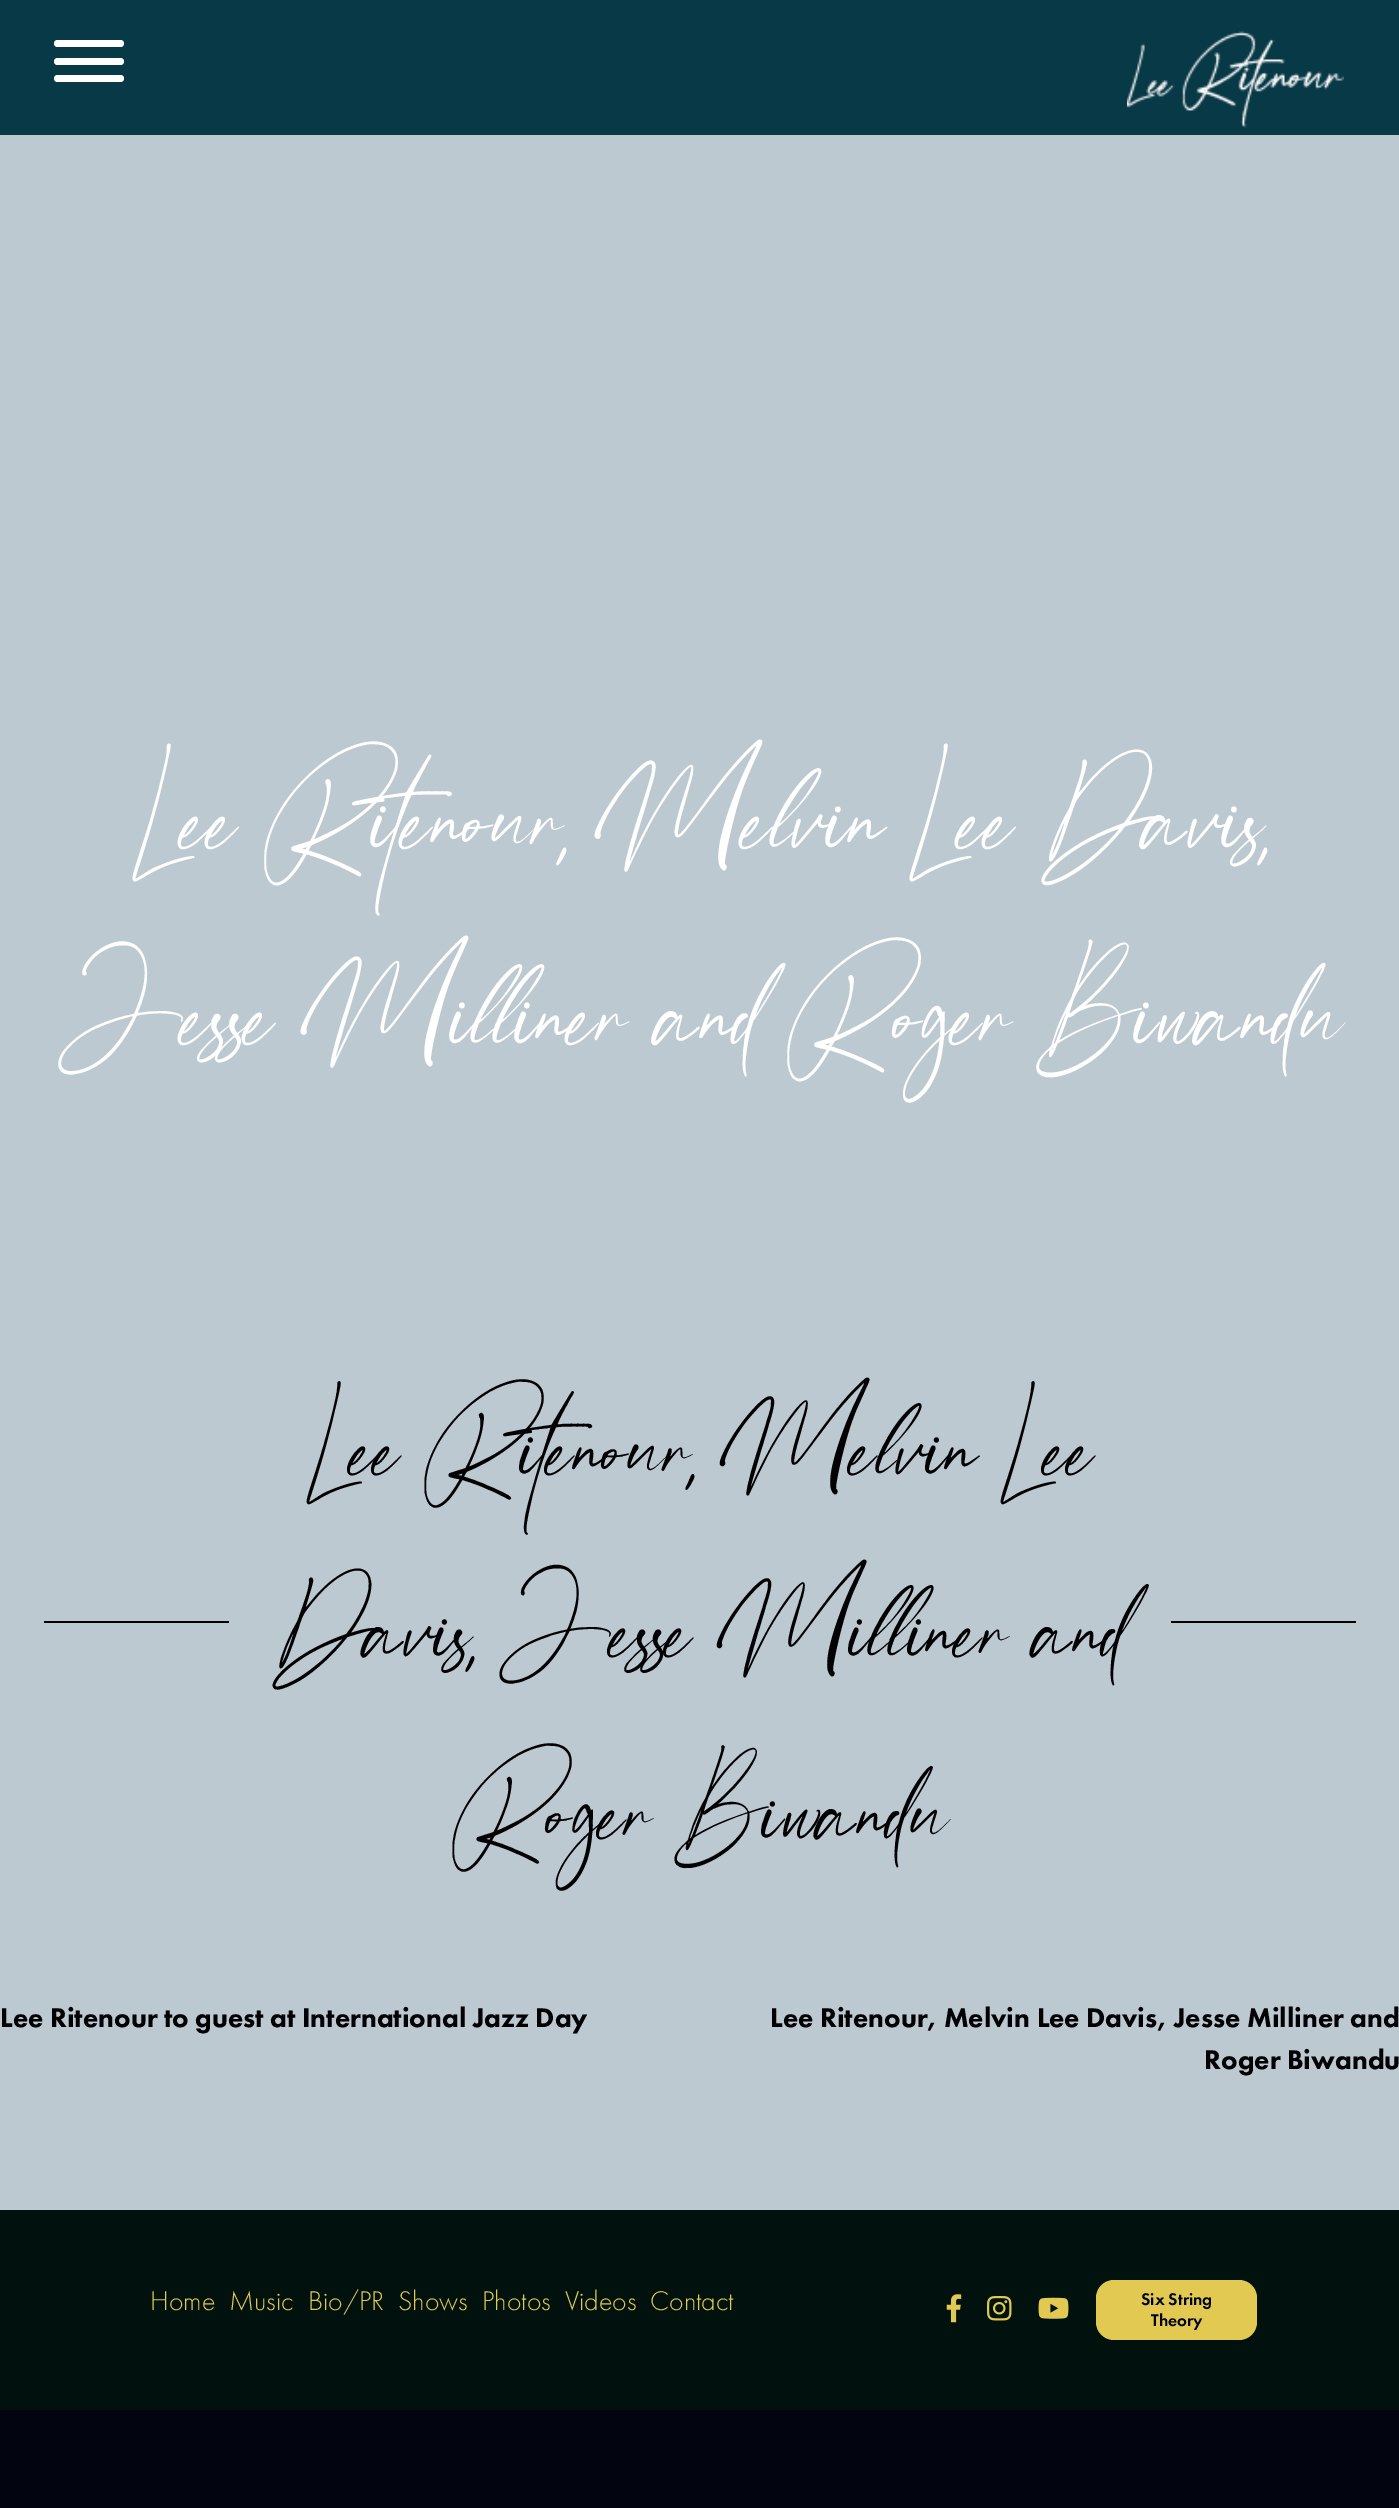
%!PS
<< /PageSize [1399 2508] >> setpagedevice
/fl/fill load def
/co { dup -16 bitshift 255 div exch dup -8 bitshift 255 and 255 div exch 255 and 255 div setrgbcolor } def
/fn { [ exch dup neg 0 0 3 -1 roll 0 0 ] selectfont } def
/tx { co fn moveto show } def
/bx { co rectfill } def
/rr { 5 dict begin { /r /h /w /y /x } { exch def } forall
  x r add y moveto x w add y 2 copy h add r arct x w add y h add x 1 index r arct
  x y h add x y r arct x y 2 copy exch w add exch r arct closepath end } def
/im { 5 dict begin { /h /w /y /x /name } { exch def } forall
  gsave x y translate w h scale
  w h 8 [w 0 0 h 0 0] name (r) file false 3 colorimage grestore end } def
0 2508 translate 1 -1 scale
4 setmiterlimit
0 0 1399 2508 16#BDC9D1 bx
0 0 1399 135 16#073947 bx
16#FFFFFF co
54 58 70 7 3.5 rr fl
54 40 70 7 3.5 rr fl
54 75 70 7 3.5 rr fl
(media/1.raw) 1127 31 217 97 im
44 1621 185 2 16#020205 bx
1171 1621 185 2 16#020205 bx
0 2410 1399 98 16#02050F bx
0 2210 1399 200 16#00110E bx
(media/2.raw) 946 2294 16 29 im
(media/3.raw) 987 2296 25 25 im
(media/4.raw) 1038 2297 31 22 im
16#E2CA52 co
1096 2280 161 60 18 rr fl
(Lee Ritenour, Melvin Lee Davis,) 134 861 /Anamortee-Regular 196 16#FFFFFF tx
(Jesse Milliner and Roger Biwandu) 60 1057 /Anamortee-Regular 196 16#FFFFFF tx
(Lee Ritenour, Melvin Lee) 308 1486 /Anamortee-Regular 175 16#020205 tx
(Davis, Jesse Milliner and) 274 1668 /Anamortee-Regular 175 16#020205 tx
(Roger Biwandu) 454 1850 /Anamortee-Regular 175 16#020205 tx
(Lee Ritenour to guest at International Jazz Day) 0 2027 /FuturaPT-Black 28 16#020205 tx
(Lee Ritenour, Melvin Lee Davis, Jesse Milliner and) 770 2027 /FuturaPT-Black 28 16#020205 tx
(Roger Biwandu) 1204 2069 /FuturaPT-Black 28 16#020205 tx
(Home) 150 2310 /FuturaPT-Light 28 16#E2CA52 tx
(Music) 229 2310 /FuturaPT-Light 28 16#E2CA52 tx
(Bio/PR) 308 2310 /FuturaPT-Light 28 16#E2CA52 tx
(Shows) 398 2310 /FuturaPT-Light 28 16#E2CA52 tx
(Photos) 482 2310 /FuturaPT-Light 28 16#E2CA52 tx
(Videos) 565 2310 /FuturaPT-Light 28 16#E2CA52 tx
(Contact) 650 2310 /FuturaPT-Light 28 16#E2CA52 tx
(Six String) 1141 2305 /FuturaPT-Medium 17.5 16#02050F tx
(Theory) 1151 2326 /FuturaPT-Medium 17.5 16#02050F tx
showpage
